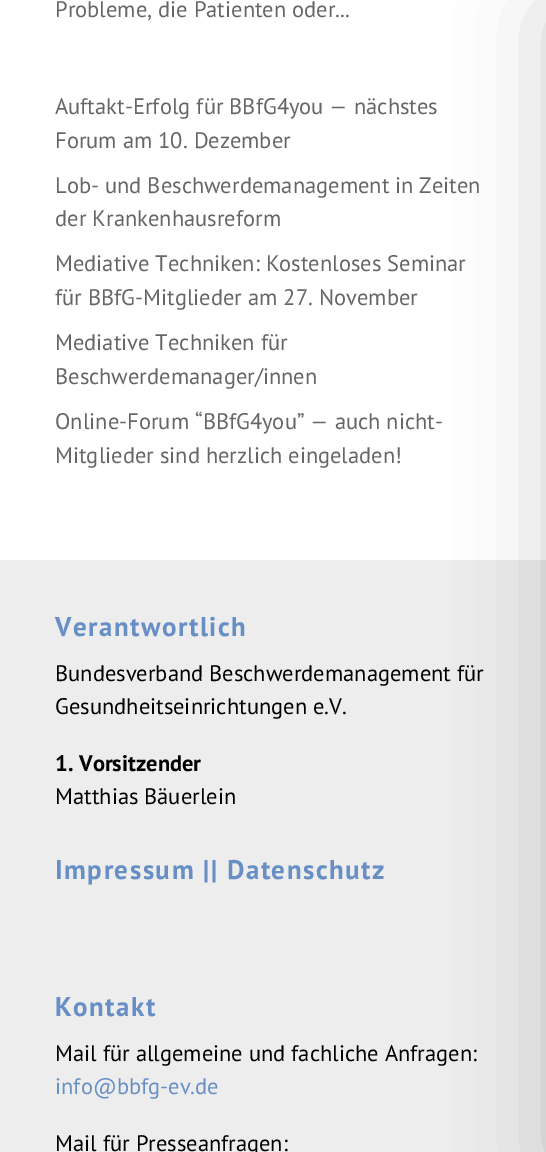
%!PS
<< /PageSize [546 1152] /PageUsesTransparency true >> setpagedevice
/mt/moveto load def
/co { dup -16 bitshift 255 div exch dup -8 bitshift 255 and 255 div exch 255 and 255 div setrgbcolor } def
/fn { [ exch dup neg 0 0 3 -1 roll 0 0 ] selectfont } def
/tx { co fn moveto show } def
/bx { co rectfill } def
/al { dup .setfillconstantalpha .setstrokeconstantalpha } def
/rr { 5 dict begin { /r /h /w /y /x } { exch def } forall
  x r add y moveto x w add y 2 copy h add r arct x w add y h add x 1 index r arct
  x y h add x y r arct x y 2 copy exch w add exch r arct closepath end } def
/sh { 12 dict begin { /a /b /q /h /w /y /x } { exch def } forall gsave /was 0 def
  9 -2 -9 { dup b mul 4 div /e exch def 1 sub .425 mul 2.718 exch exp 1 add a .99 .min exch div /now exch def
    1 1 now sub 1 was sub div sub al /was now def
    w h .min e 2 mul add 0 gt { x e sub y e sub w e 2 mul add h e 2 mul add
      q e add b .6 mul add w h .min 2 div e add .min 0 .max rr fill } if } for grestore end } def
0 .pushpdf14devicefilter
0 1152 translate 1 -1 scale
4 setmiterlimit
0 0 546 1152 16#EDEDED bx
0 0 546 560 16#FFFFFF bx
16#000000 co
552 15 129 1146 0 45 .2 sh
(Probleme, die Patienten oder...) 55 17 /PTSans-Regular 22.5 16#666666 tx
(Auftakt-Erfolg für BBfG4you — nächstes) 55 114 /PTSans-Regular 22.5 16#666666 tx
(Forum am 10. Dezember) 55 148 /PTSans-Regular 22.5 16#666666 tx
(Lob- und Beschwerdemanagement in Zeiten) 55 193 /PTSans-Regular 22.5 16#666666 tx
(der Krankenhausreform) 55 226 /PTSans-Regular 22.5 16#666666 tx
(Mediative Techniken: Kostenloses Seminar) 55 271 /PTSans-Regular 22.5 16#666666 tx
(für BBfG-Mitglieder am 27. November) 55 305 /PTSans-Regular 22.5 16#666666 tx
(Mediative Techniken für) 55 350 /PTSans-Regular 22.5 16#666666 tx
(Beschwerdemanager/innen) 55 384 /PTSans-Regular 22.5 16#666666 tx
(Online-Forum “BBfG4you” — auch nicht-) 55 429 /PTSans-Regular 22.5 16#666666 tx
(Mitglieder sind herzlich eingeladen!) 55 463 /PTSans-Regular 22.5 16#666666 tx
/PTSans-Bold 27 fn
16#678FC5 co
55 636 mt 1.5 0 (Verantwortlich) ashow
(Bundesverband Beschwerdemanagement für) 55 681 /PTSans-Regular 22.5 16#000000 tx
(Gesundheitseinrichtungen e.V.) 55 714 /PTSans-Regular 22.5 16#000000 tx
(1. Vorsitzender) 55 771 /PTSans-Bold 22.5 16#000000 tx
(Matthias Bäuerlein) 55 804 /PTSans-Regular 22.5 16#000000 tx
/PTSans-Bold 27 fn
16#678FC5 co
55 879 mt 1.5 0 (Impressum || Datenschutz) ashow
55 1016 mt 1.5 0 (Kontakt) ashow
(Mail für allgemeine und fachliche Anfragen:) 55 1061 /PTSans-Regular 22.5 16#000000 tx
(info@bbfg-ev.de) 55 1094 /PTSans-Regular 22.5 16#678FC5 tx
(Mail für Presseanfragen:) 55 1151 /PTSans-Regular 22.5 16#000000 tx
.poppdf14devicefilter showpage
